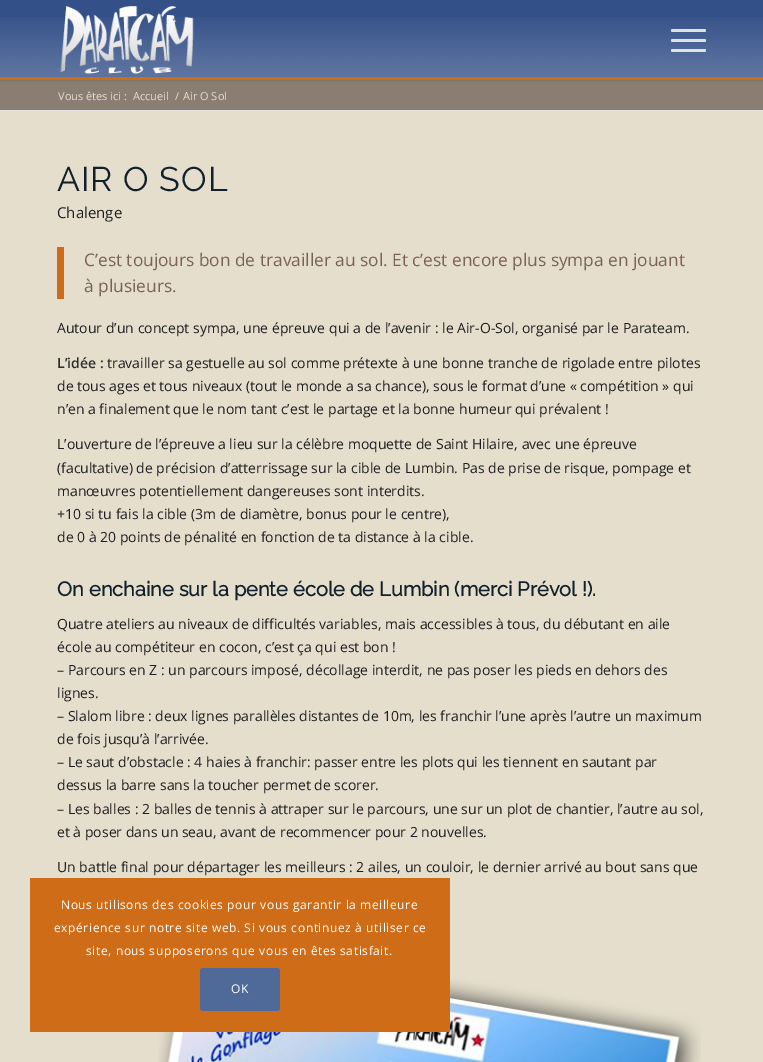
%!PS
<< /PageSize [763 1062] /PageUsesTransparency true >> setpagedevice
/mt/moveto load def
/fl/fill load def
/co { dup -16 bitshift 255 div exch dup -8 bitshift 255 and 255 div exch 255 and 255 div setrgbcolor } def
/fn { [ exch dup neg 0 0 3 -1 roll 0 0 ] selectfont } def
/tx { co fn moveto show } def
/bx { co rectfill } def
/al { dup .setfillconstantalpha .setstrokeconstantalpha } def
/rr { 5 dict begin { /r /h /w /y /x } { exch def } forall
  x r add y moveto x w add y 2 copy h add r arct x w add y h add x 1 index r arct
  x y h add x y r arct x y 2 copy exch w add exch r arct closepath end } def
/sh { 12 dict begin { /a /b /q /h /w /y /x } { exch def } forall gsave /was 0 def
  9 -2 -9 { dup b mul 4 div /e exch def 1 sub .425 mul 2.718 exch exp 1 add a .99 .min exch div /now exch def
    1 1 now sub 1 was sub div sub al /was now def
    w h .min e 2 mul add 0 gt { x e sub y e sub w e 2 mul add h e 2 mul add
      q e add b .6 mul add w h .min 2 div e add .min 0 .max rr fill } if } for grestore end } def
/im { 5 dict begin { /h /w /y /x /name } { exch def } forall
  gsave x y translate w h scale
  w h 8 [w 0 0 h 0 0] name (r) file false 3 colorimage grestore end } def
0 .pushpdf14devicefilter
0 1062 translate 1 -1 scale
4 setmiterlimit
0 0 763 1062 16#8A7D72 bx
16#000000 co
-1 -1 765 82 0 1 .1 sh
0 0 763 17 16#345088 bx
(media/1.raw) 0 17 763 63 im
(media/2.raw) 60 6 134 68 im
16#E1E1E1 co
671 39 35 3 1.5 rr fl
671 29 35 3 1.5 rr fl
671 49 35 3 1.5 rr fl
0 111 763 951 16#E5DECD bx
0 110 763 1 16#E1E1E1 bx
57 247 7 52 16#CE6C17 bx
(media/3.raw) 158 979 543 83 im
30 878 420 154 16#CE6C17 bx
16#4F6998 co
200 968 80 43 3 rr fl
(Vous êtes ici :) 58 100 /OpenSans-Regular 11 16#E5DECD tx
(Accueil) 133 100 /OpenSans-Regular 11 16#E5DECD tx
(/) 175 100 /OpenSans-Regular 11 16#E5DECD tx
(Air O Sol) 183 100 /OpenSans-Regular 11 16#E5DECD tx
/Raleway-Thin 34 fn
16#11202A co
57 191 mt 1 0 (AIR O SOL) ashow
(Chalenge) 57 218 /OpenSans-Regular 15 16#1D1E1F tx
(C’est toujours bon de travailler au sol. Et c’est encore plus sympa en jouant) 84 266 /OpenSans-Regular 17.3 16#7A6350 tx
(à plusieurs.) 84 292 /OpenSans-Regular 17.3 16#7A6350 tx
(Autour d’un concept sympa, une épreuve qui a de l’avenir : le Air-O-Sol, organisé par le Parateam.) 57 333 /OpenSans-Regular 14 16#1D1E1F tx
(L’idée :) 57 368 /OpenSans-SemiBold 14 16#2D2D2D tx
(travailler sa gestuelle au sol comme prétexte à une bonne tranche de rigolade entre pilotes) 107 368 /OpenSans-Regular 14 16#1D1E1F tx
(de tous ages et tous niveaux \(tout le monde a sa chance\), sous le format d’une « compétition » qui) 57 391 /OpenSans-Regular 14 16#1D1E1F tx
(n’en a finalement que le nom tant c’est le partage et la bonne humeur qui prévalent !) 57 414 /OpenSans-Regular 14 16#1D1E1F tx
(L’ouverture de l’épreuve a lieu sur la célèbre moquette de Saint Hilaire, avec une épreuve) 57 449 /OpenSans-Regular 14 16#1D1E1F tx
(\(facultative\) de précision d’atterrissage sur la cible de Lumbin. Pas de prise de risque, pompage et) 57 473 /OpenSans-Regular 14 16#1D1E1F tx
(manœuvres potentiellement dangereuses sont interdits.) 57 496 /OpenSans-Regular 14 16#1D1E1F tx
(+10 si tu fais la cible \(3m de diamètre, bonus pour le centre\),) 57 519 /OpenSans-Regular 14 16#1D1E1F tx
(de 0 à 20 points de pénalité en fonction de ta distance à la cible.) 57 542 /OpenSans-Regular 14 16#1D1E1F tx
(On enchaine sur la pente école de Lumbin \(merci Prévol !\).) 57 596 /Raleway-Bold 20 16#11202A tx
(Quatre ateliers au niveaux de difficultés variables, mais accessibles à tous, du débutant en aile) 57 629 /OpenSans-Regular 14 16#1D1E1F tx
(école au compétiteur en cocon, c’est ça qui est bon !) 57 652 /OpenSans-Regular 14 16#1D1E1F tx
(– Parcours en Z : un parcours imposé, décollage interdit, ne pas poser les pieds en dehors des) 57 675 /OpenSans-Regular 14 16#1D1E1F tx
(lignes.) 57 698 /OpenSans-Regular 14 16#1D1E1F tx
(– Slalom libre : deux lignes parallèles distantes de 10m, les franchir l’une après l’autre un maximum) 57 721 /OpenSans-Regular 14 16#1D1E1F tx
(de fois jusqu’à l’arrivée.) 57 744 /OpenSans-Regular 14 16#1D1E1F tx
(– Le saut d’obstacle : 4 haies à franchir: passer entre les plots qui les tiennent en sautant par) 57 767 /OpenSans-Regular 14 16#1D1E1F tx
(dessus la barre sans la toucher permet de scorer.) 57 790 /OpenSans-Regular 14 16#1D1E1F tx
(– Les balles : 2 balles de tennis à attraper sur le parcours, une sur un plot de chantier, l’autre au sol,) 57 814 /OpenSans-Regular 14 16#1D1E1F tx
(et à poser dans un seau, avant de recommencer pour 2 nouvelles.) 57 837 /OpenSans-Regular 14 16#1D1E1F tx
(Un battle final pour départager les meilleurs : 2 ailes, un couloir, le dernier arrivé au bout sans que) 57 872 /OpenSans-Regular 14 16#1D1E1F tx
/OpenSans-Regular 12 fn
16#FFFFFF co
61 909 mt .6 0 (Nous utilisons des cookies pour vous garantir la meilleure) ashow
54 932 mt .6 0 (expérience sur notre site web. Si vous continuez à utiliser ce) ashow
86 955 mt .6 0 (site, nous supposerons que vous en êtes satisfait.) ashow
231 993 mt .6 0 (OK) ashow
.poppdf14devicefilter showpage
